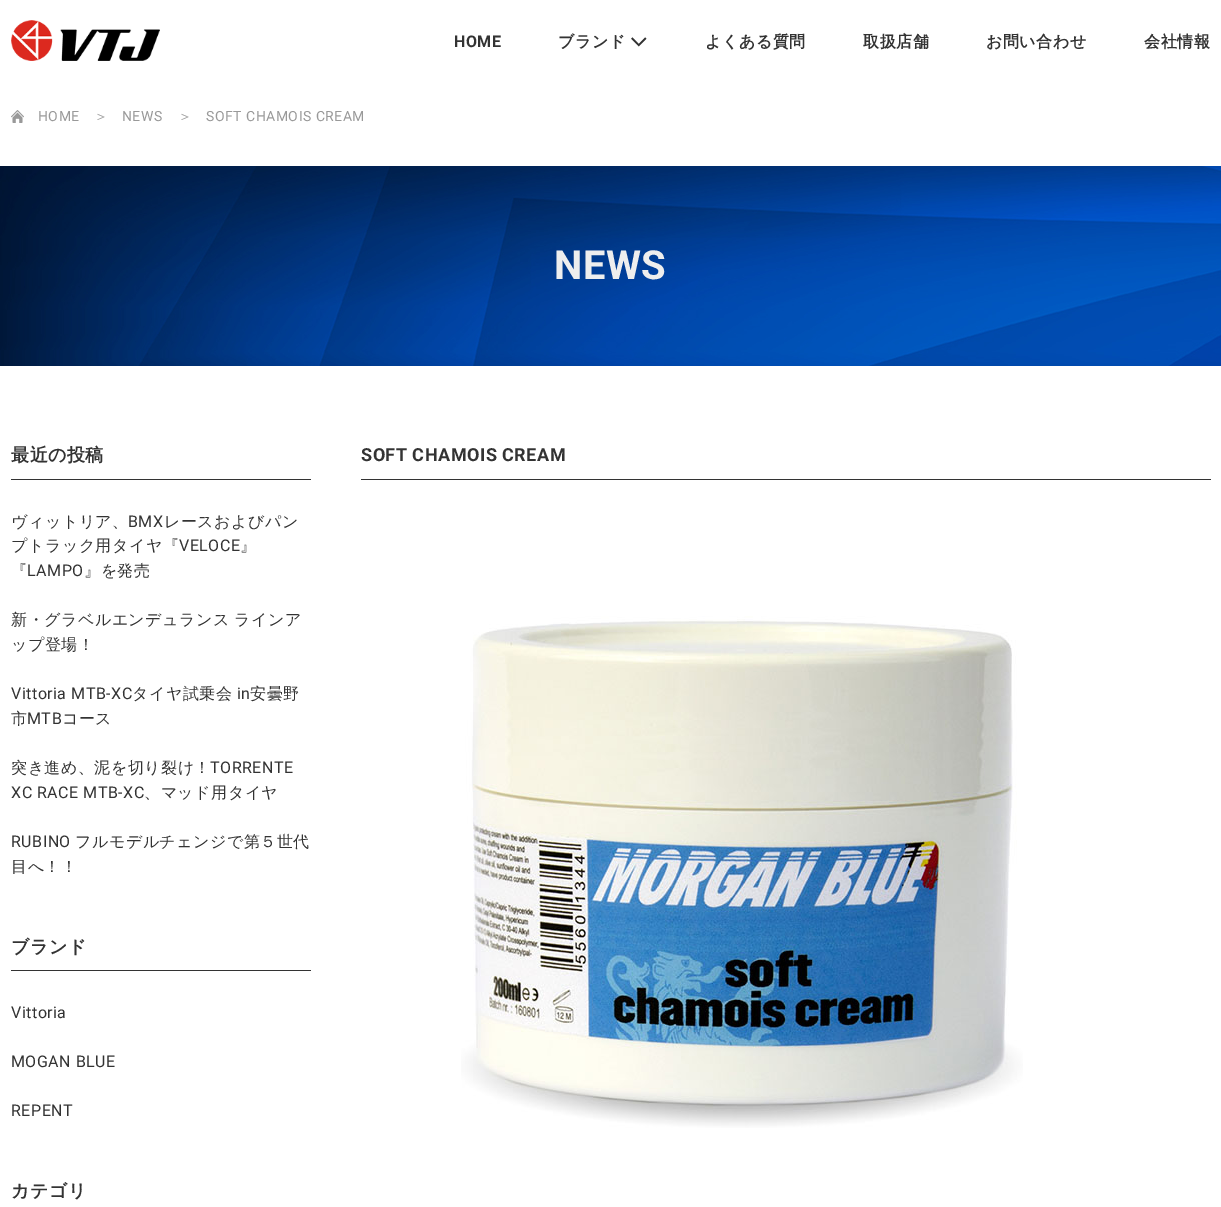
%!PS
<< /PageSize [1221 1207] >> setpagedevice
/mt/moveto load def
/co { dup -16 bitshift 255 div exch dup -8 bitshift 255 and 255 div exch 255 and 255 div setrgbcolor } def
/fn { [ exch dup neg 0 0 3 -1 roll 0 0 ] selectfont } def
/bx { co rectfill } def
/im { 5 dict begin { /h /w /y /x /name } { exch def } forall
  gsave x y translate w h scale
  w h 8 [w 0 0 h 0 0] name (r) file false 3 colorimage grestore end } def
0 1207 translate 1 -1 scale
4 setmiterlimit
0 0 1221 1207 16#FFFFFF bx
(media/1.raw) 11 20 149 41 im
(media/2.raw) 631 37 16 10 im
(media/3.raw) 11 110 13 13 im
(media/4.raw) 0 166 1221 200 im
11 479 300 1 16#333333 bx
11 970 300 1 16#333333 bx
361 479 850 1 16#333333 bx
(media/5.raw) 461 616 562 512 im
/Roboto-Bold 16 fn
454 47 mt .5 0 (HOME) ashow
/WenQuanYiZenHei-Bold 16 fn
558 47 mt .5 0 (ブランド) ashow
705 47 mt .5 0 (よくある質問) ashow
863 47 mt .5 0 (取扱店舗) ashow
986 47 mt .5 0 (お問い合わせ) ashow
1144 47 mt .5 0 (会社情報) ashow
/Roboto-Regular 14 fn
16#999999 co
38 121 mt .5 0 (HOME) ashow
/WenQuanYiZenHei-Medium 14 fn
94 121 mt .5 0 (＞) ashow
/Roboto-Regular 14 fn
122 121 mt .5 0 (NEWS) ashow
/WenQuanYiZenHei-Medium 14 fn
178 121 mt .5 0 (＞) ashow
/Roboto-Regular 14 fn
206 121 mt .5 0 (SOFT CHAMOIS CREAM) ashow
/Roboto-Bold 40 fn
16#EEEEEE co
554 279 mt .5 0 (NEWS) ashow
/WenQuanYiZenHei-Bold 18 fn
16#333333 co
11 461 mt .5 0 (最近の投稿) ashow
/WenQuanYiZenHei-Medium 16 fn
11 527 mt .5 0 (ヴィットリア、) ashow
/Roboto-Regular 16 fn
128 527 mt .5 0 (BMX) ashow
/WenQuanYiZenHei-Medium 16 fn
164 527 mt .5 0 (レースおよびパン) ashow
11 551 mt .5 0 (プトラック用タイヤ『) ashow
/Roboto-Regular 16 fn
179 551 mt .5 0 (VELOCE) ashow
/WenQuanYiZenHei-Medium 16 fn
240 551 mt .5 0 (』) ashow
11 576 mt .5 0 (『) ashow
/Roboto-Regular 16 fn
27 576 mt .5 0 (LAMPO) ashow
/WenQuanYiZenHei-Medium 16 fn
84 576 mt .5 0 (』を発売) ashow
11 625 mt -1 0 32 .5 0 (新・グラベルエンデュランス ラインア) awidthshow
11 650 mt .5 0 (ップ登場！) ashow
/Roboto-Regular 16 fn
11 699 mt .5 0 (Vittoria MTB-XC) ashow
/WenQuanYiZenHei-Medium 16 fn
132 699 mt .5 0 (タイヤ試乗会) ashow
/Roboto-Regular 16 fn
237 699 mt .5 0 (in) ashow
/WenQuanYiZenHei-Medium 16 fn
250 699 mt .5 0 (安曇野) ashow
11 724 mt .5 0 (市) ashow
/Roboto-Regular 16 fn
27 724 mt .5 0 (MTB) ashow
/WenQuanYiZenHei-Medium 16 fn
62 724 mt .5 0 (コース) ashow
11 773 mt .5 0 (突き進め、泥を切り裂け！) ashow
/Roboto-Regular 16 fn
210 773 mt .5 0 (TORRENTE) ashow
11 798 mt .5 0 (XC RACE MTB-XC) ashow
/WenQuanYiZenHei-Medium 16 fn
144 798 mt .5 0 (、マッド用タイヤ) ashow
/Roboto-Regular 16 fn
11 847 mt .5 0 (RUBINO) ashow
/WenQuanYiZenHei-Medium 16 fn
75 847 mt .5 0 (フルモデルチェンジで第５世代) ashow
11 872 mt .5 0 (目へ！！) ashow
/WenQuanYiZenHei-Bold 18 fn
11 953 mt .5 0 (ブランド) ashow
/Roboto-Regular 16 fn
11 1018 mt .5 0 (Vittoria) ashow
11 1067 mt .5 0 (MOGAN BLUE) ashow
11 1116 mt .5 0 (REPENT) ashow
/WenQuanYiZenHei-Bold 18 fn
11 1197 mt .5 0 (カテゴリ) ashow
/Roboto-Bold 18 fn
361 461 mt .5 0 (SOFT CHAMOIS CREAM) ashow
showpage
